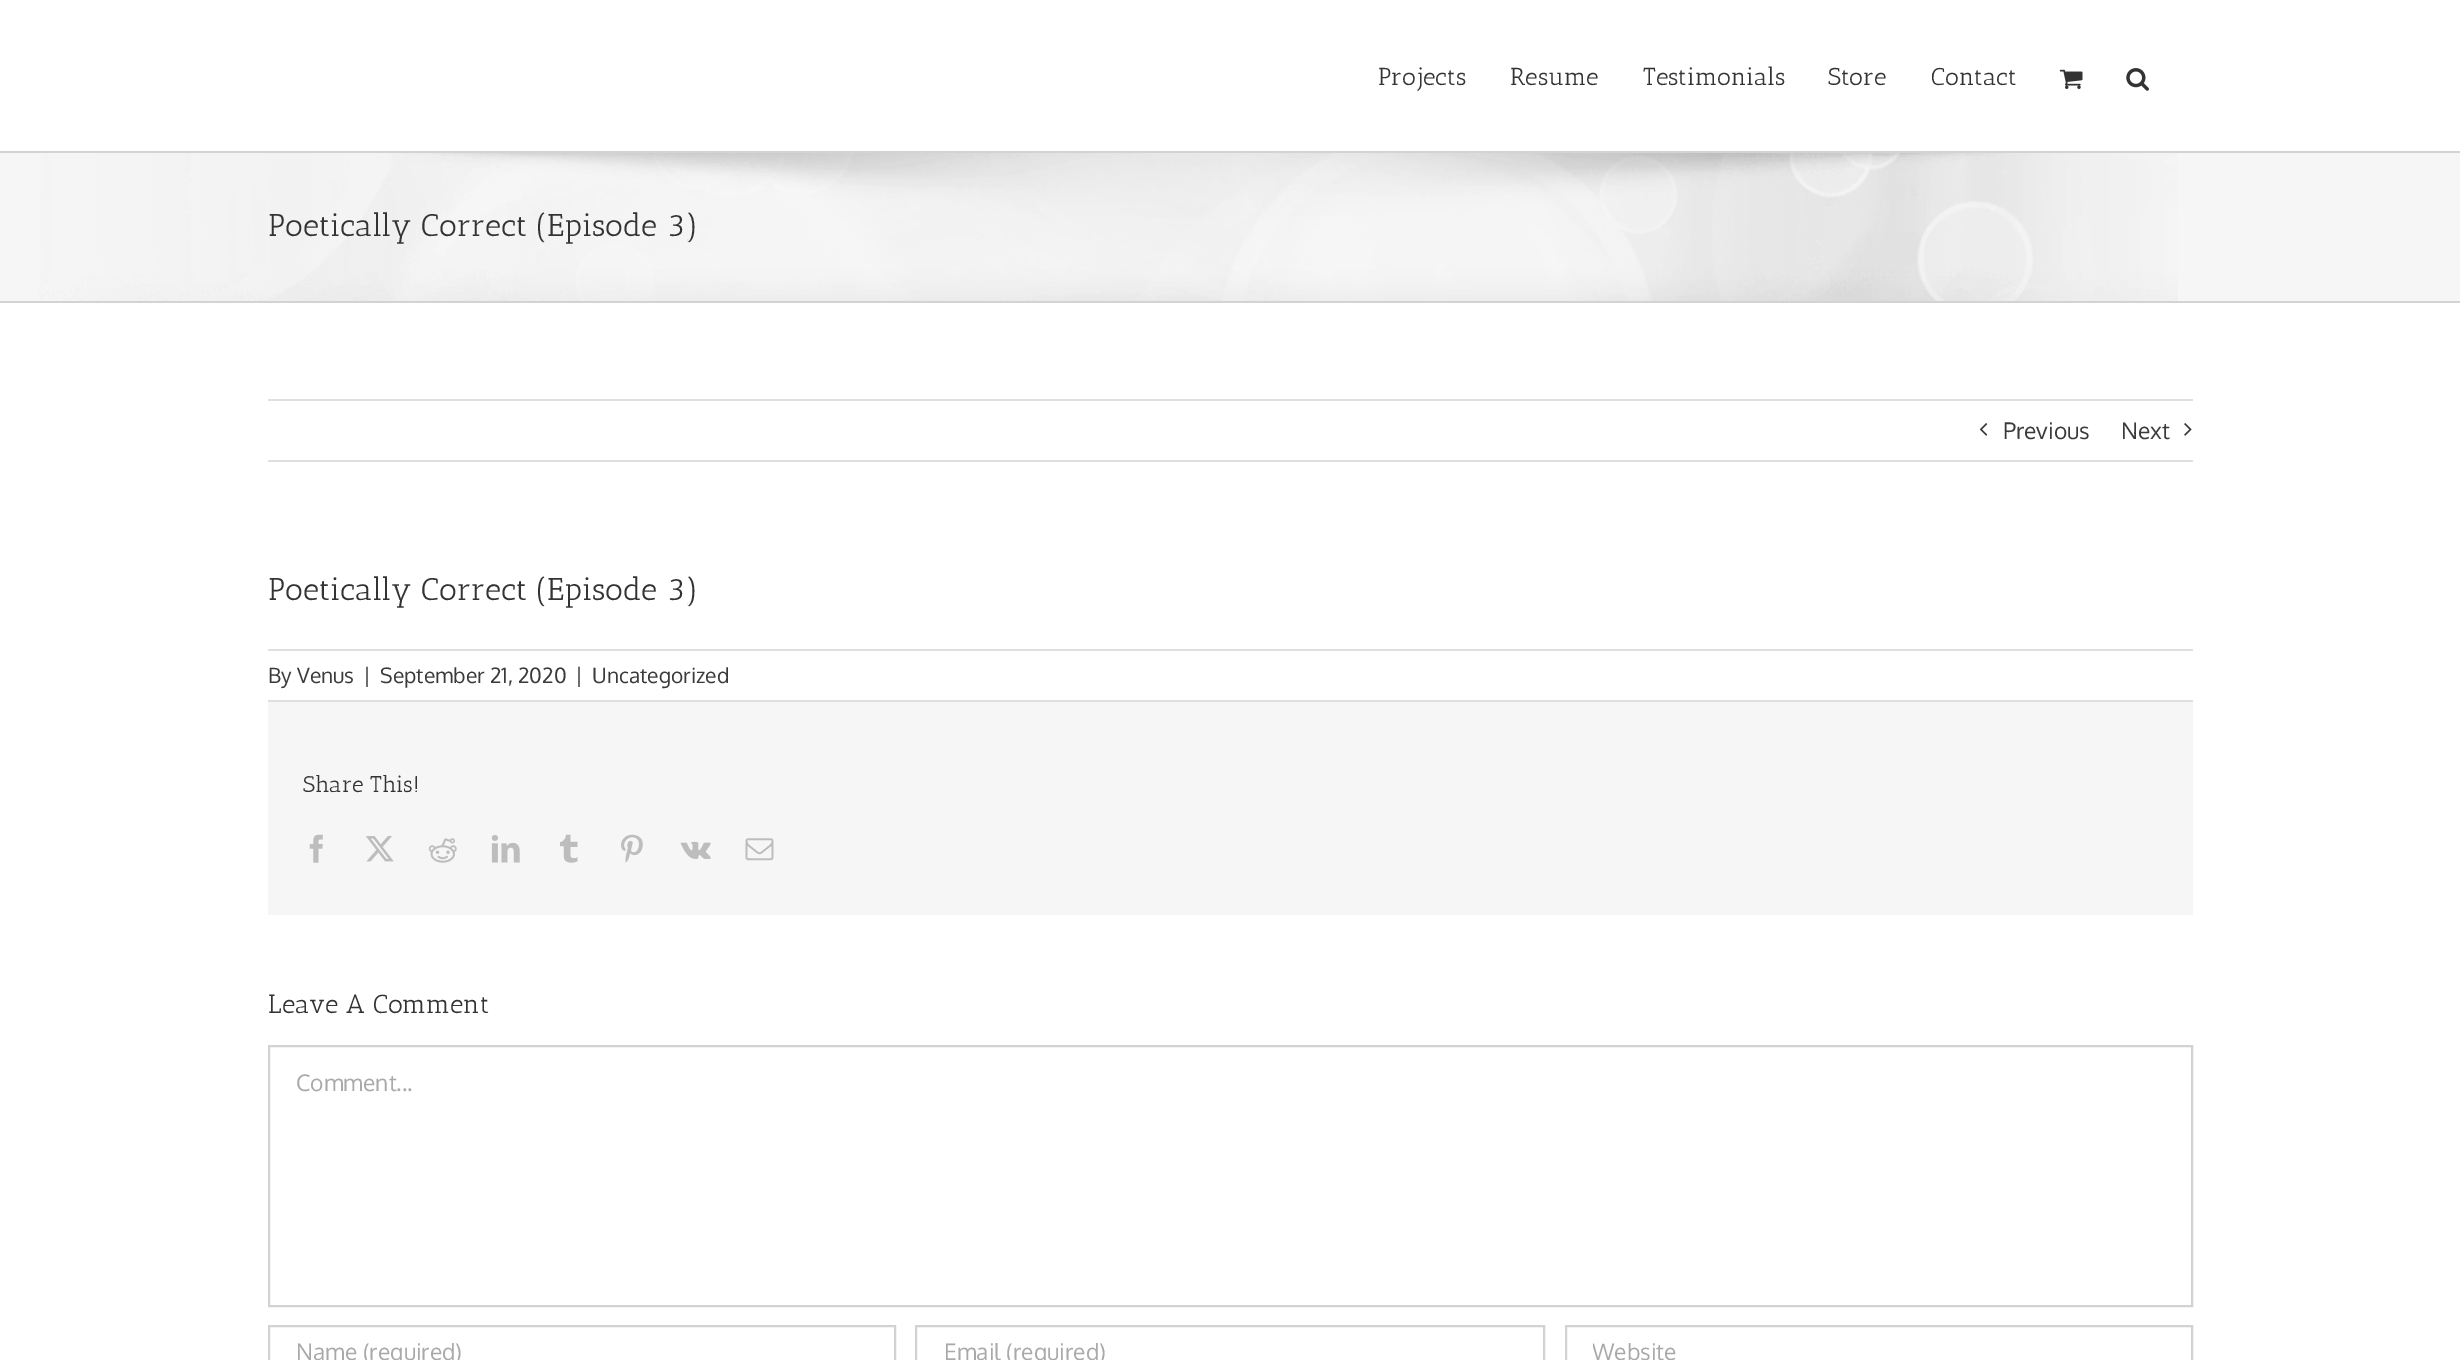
%!PS
<< /PageSize [2460 1360] >> setpagedevice
/gs/gsave load def
/gr/grestore load def
/lw/setlinewidth load def
/co { dup -16 bitshift 255 div exch dup -8 bitshift 255 and 255 div exch 255 and 255 div setrgbcolor } def
/fn { [ exch dup neg 0 0 3 -1 roll 0 0 ] selectfont } def
/tx { co fn moveto show } def
/bx { co rectfill } def
/im { 5 dict begin { /h /w /y /x /name } { exch def } forall
  gsave x y translate w h scale
  w h 8 [w 0 0 h 0 0] name (r) file false 3 colorimage grestore end } def
0 1360 translate 1 -1 scale
4 setmiterlimit
0 0 2460 1360 16#FFFFFF bx
(media/1.raw) 2059 69 24 20 im
(media/2.raw) 2126 68 23 23 im
0 153 2460 148 16#F6F6F6 bx
(media/3.raw) 39 153 2139 148 im
0 151 2460 2 16#D2D3D4 bx
0 301 2460 2 16#D2D3D4 bx
268 399 1925 2 16#E0DEDE bx
268 460 1925 2 16#E0DEDE bx
(media/4.raw) 1979 423 9 13 im
(media/5.raw) 2184 423 8 13 im
268 649 1925 2 16#E0DEDE bx
268 700 1925 2 16#E0DEDE bx
268 702 1925 213 16#F6F6F6 bx
(media/6.raw) 309 834 14 29 im
(media/7.raw) 366 836 28 26 im
(media/8.raw) 428 838 29 25 im
(media/9.raw) 491 835 29 28 im
(media/10.raw) 560 834 18 29 im
(media/11.raw) 621 834 22 29 im
(media/12.raw) 680 841 31 18 im
(media/13.raw) 745 838 29 23 im
16#D2D2D2 co
2 lw
269 1046 1923 260 rectstroke
269 1326 626 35 rectstroke
916 1326 628 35 rectstroke
1566 1326 626 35 rectstroke
(Projects) 1378 85 /AnticSlab-Regular 24.5 16#333333 tx
(Resume) 1510 85 /AnticSlab-Regular 24.5 16#333333 tx
(Testimonials) 1643 85 /AnticSlab-Regular 24.5 16#333333 tx
(Store) 1828 85 /AnticSlab-Regular 24.5 16#333333 tx
(Contact) 1931 85 /AnticSlab-Regular 24.5 16#333333 tx
(Poetically Correct \(Episode 3\)) 268 236 /AnticSlab-Regular 31.5 16#333333 tx
(Previous) 2003 439 /Oxygen-Regular 22.75 16#3A3A3A tx
(Next) 2121 439 /Oxygen-Regular 22.75 16#3A3A3A tx
(Poetically Correct \(Episode 3\)) 268 600 /AnticSlab-Regular 31.5 16#333333 tx
(By Venus) 268 683 /Oxygen-Regular 21 16#3A3A3A tx
(|) 363 683 /Oxygen-Regular 21 16#3A3A3A tx
(September 21, 2020) 380 683 /Oxygen-Regular 21 16#3A3A3A tx
(|) 575 683 /Oxygen-Regular 21 16#3A3A3A tx
(Uncategorized) 592 683 /Oxygen-Regular 21 16#3A3A3A tx
(Share This!) 303 792 /AnticSlab-Regular 22.75 16#333333 tx
(Leave A Comment) 268 1013 /AnticSlab-Regular 26.25 16#333333 tx
(Comment...) 296 1091 /Oxygen-Regular 22.75 16#AAA9A9 tx
(Name \(required\)) 296 1360 /Oxygen-Regular 22.75 16#AAA9A9 tx
(Email \(required\)) 944 1360 /Oxygen-Regular 22.75 16#AAA9A9 tx
gs
1593 1337 572 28 rectclip
(Website) 1592 1360 /Oxygen-Regular 22.75 16#AAA9A9 tx
gr
showpage
